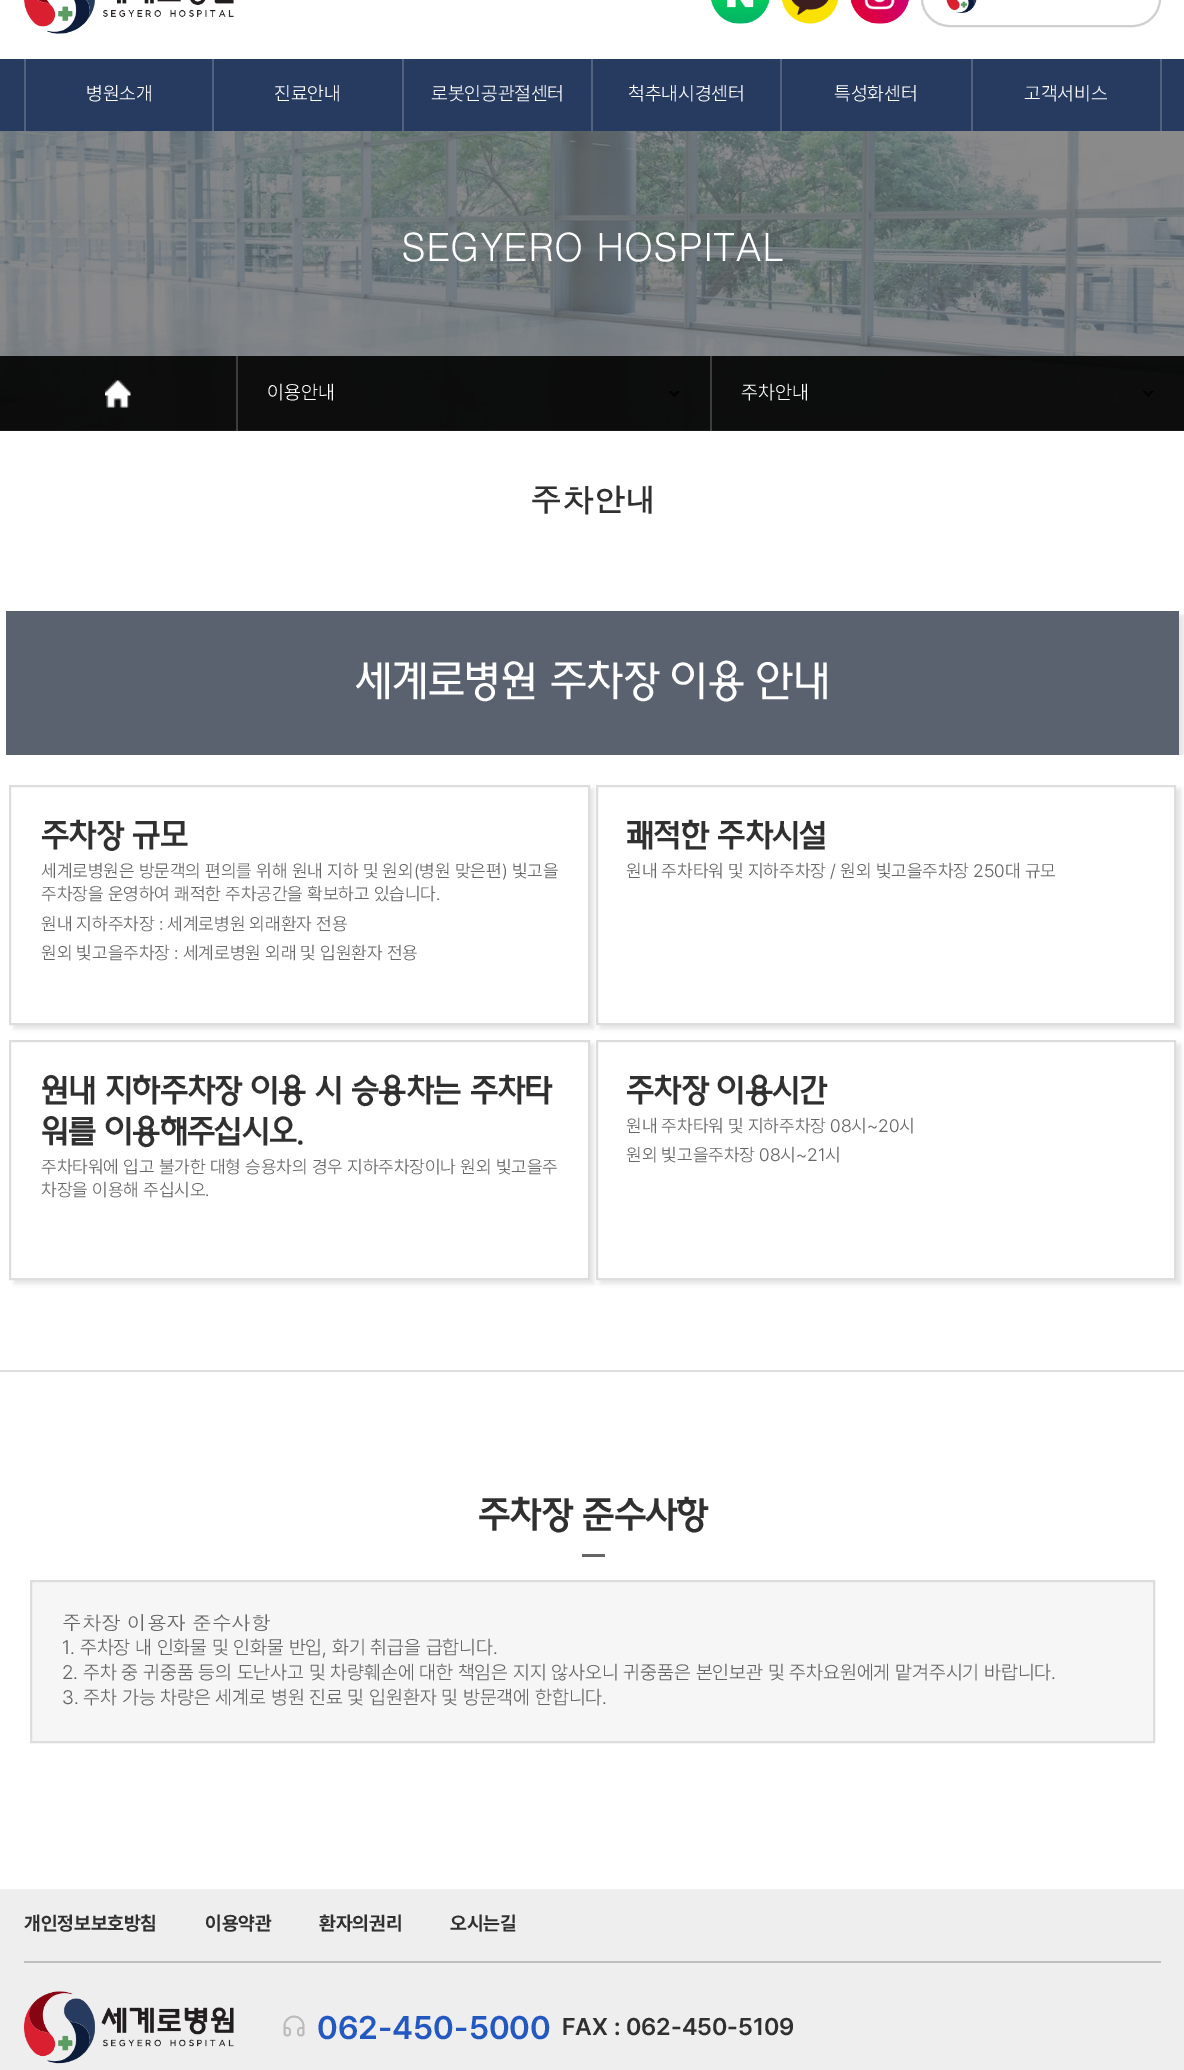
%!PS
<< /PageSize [1184 2070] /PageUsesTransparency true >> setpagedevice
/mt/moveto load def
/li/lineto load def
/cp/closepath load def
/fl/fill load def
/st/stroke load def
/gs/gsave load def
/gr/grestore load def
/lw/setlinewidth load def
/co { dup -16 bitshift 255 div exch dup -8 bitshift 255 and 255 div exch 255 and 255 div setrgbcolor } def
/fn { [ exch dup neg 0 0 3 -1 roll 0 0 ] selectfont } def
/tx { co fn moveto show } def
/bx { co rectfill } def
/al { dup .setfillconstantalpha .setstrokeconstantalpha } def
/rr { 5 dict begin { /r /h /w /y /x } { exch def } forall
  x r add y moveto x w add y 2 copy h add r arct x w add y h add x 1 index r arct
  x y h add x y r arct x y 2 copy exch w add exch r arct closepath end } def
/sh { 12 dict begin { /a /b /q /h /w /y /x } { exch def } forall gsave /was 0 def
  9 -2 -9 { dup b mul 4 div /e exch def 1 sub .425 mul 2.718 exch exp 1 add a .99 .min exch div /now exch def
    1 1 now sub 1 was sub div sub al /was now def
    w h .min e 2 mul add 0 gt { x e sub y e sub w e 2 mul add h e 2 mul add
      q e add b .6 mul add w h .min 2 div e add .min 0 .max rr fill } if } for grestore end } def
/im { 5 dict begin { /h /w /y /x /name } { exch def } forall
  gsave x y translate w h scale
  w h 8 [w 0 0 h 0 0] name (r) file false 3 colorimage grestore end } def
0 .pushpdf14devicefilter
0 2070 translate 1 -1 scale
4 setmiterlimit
0 0 1184 2070 16#FFFFFF bx
(media/1.raw) 24 0 210 34 im
(media/2.raw) 711 0 59 24 im
(media/3.raw) 781 0 58 24 im
(media/4.raw) 850 0 59 24 im
16#CFCFCF co
2 lw
922 -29 238 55 27.5 rr st
(media/5.raw) 946 0 31 13 im
0 59 1184 72 16#273A60 bx
212 59 2 72 16#526180 bx
24 59 2 72 16#526180 bx
402 59 2 72 16#526180 bx
591 59 2 72 16#526180 bx
780 59 2 72 16#526180 bx
971 59 2 72 16#526180 bx
1160 59 2 72 16#526180 bx
(media/6.raw) 0 131 1184 299 im
0.9 al
0 356 1184 75 16#000000 bx
0.2 al
236 356 2 75 16#FFFFFF bx
1 al
(media/7.raw) 105 380 26 28 im
0.2 al
710 356 2 75 16#FFFFFF bx
1 al
(media/8.raw) 669 391 11 6 im
(media/9.raw) 1143 391 11 6 im
gs
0 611 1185 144 rectclip
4 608 mt 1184 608 li 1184 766 li 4 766 li cp 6 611 mt 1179 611 li 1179 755 li 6 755 li cp eoclip newpath
16#000000 co
11 615 1173 144 0 2 .1 sh
gr
0.9 al
6 611 1173 144 16#48515F bx
1 al
16#000000 co
14 789 580 240 0 2 .1 sh
16#FFFFFF co
10 786 mt 589 786 li 589 1024 li 10 1024 li cp gs fl gr
16#DDDDDD co
st
16#000000 co
600 789 581 240 0 2 .1 sh
16#FFFFFF co
597 786 mt 1175 786 li 1175 1024 li 597 1024 li cp gs fl gr
16#DDDDDD co
st
16#000000 co
14 1044 580 240 0 2 .1 sh
16#FFFFFF co
10 1041 mt 589 1041 li 589 1279 li 10 1279 li cp gs fl gr
16#DDDDDD co
st
16#000000 co
600 1044 581 240 0 2 .1 sh
16#FFFFFF co
597 1041 mt 1175 1041 li 1175 1279 li 597 1279 li cp gs fl gr
16#DDDDDD co
st
0 1370 1184 2 16#DDDDDD bx
582 1554 23 3 16#666666 bx
16#F6F6F6 co
31 1581 mt 1154 1581 li 1154 1742 li 31 1742 li cp gs fl gr
16#DDDDDD co
st
0 1889 1184 181 16#EEEEEE bx
24 1961 1137 2 16#BEBEBE bx
(media/10.raw) 24 1991 210 73 im
(media/11.raw) 283 2015 22 22 im
(병원소개) 86 100 /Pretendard-Light 19.25 16#FFFFFF tx
(진료안내) 274 100 /Pretendard-Light 19.25 16#FFFFFF tx
(로봇인공관절센터) 431 100 /Pretendard-Light 19.25 16#FFFFFF tx
(척추내시경센터) 628 100 /Pretendard-Light 19.25 16#FFFFFF tx
(특성화센터) 834 100 /Pretendard-Light 19.25 16#FFFFFF tx
(고객서비스) 1024 100 /Pretendard-Light 19.25 16#FFFFFF tx
(SEGYERO HOSPITAL) 401 261 /Dotum-Regular 39 16#FFFFFF tx
(이용안내) 267 399 /Pretendard-Light 19.5 16#FFFFFF tx
(주차안내) 741 399 /Pretendard-Light 19.5 16#FFFFFF tx
(주차안내) 530 512 /Dotum-Bold 31.5 16#303030 tx
(세계로병원 주차장 이용 안내) 355 696 /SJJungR-Regular 42 16#FFFFFF tx
(주차장 규모) 41 847 /SJJungR-Bold 31.5 16#303030 tx
(세계로병원은 방문객의 편의를 위해 원내 지하 및 원외\(병원 맞은편\) 빛고을) 41 877 /Pretendard-Light 18 16#666666 tx
(주차장을 운영하여 쾌적한 주차공간을 확보하고 있습니다.) 41 900 /Pretendard-Light 18 16#666666 tx
(원내 지하주차장 : 세계로병원 외래환자 전용) 41 930 /Pretendard-Light 18 16#666666 tx
(원외 빛고을주차장 : 세계로병원 외래 및 입원환자 전용) 41 959 /Pretendard-Light 18 16#666666 tx
(쾌적한 주차시설) 626 847 /SJJungR-Bold 31.5 16#303030 tx
(원내 주차타워 및 지하주차장 / 원외 빛고을주차장 250대 규모) 626 877 /Pretendard-Light 18 16#666666 tx
(원내 지하주차장 이용 시 승용차는 주차타) 41 1102 /SJJungR-Bold 31.5 16#303030 tx
(워를 이용해주십시오.) 41 1143 /SJJungR-Bold 31.5 16#303030 tx
(주차타워에 입고 불가한 대형 승용차의 경우 지하주차장이나 원외 빛고을주) 41 1173 /Pretendard-Light 18 16#666666 tx
(차장을 이용해 주십시오.) 41 1196 /Pretendard-Light 18 16#666666 tx
(주차장 이용시간) 626 1102 /SJJungR-Bold 31.5 16#303030 tx
(원내 주차타워 및 지하주차장 08시~20시) 626 1132 /Pretendard-Light 18 16#666666 tx
(원외 빛고을주차장 08시~21시) 626 1161 /Pretendard-Light 18 16#666666 tx
(주차장 준수사항) 478 1528 /SJJungR-Bold 36 16#303030 tx
(주차장 이용자 준수사항) 62 1630 /Dotum-Regular 19.5 16#666666 tx
(1. 주차장 내 인화물 및 인화물 반입, 화기 취급을 급합니다.) 62 1654 /Pretendard-Light 19.5 16#666666 tx
(2. 주차 중 귀중품 등의 도난사고 및 차량훼손에 대한 책임은 지지 않사오니 귀중품은 본인보관 및 주차요원에게 맡겨주시기 바랍니다.) 62 1679 /Pretendard-Light 19.5 16#666666 tx
(3. 주차 가능 차량은 세계로 병원 진료 및 입원환자 및 방문객에 한합니다.) 62 1704 /Pretendard-Light 19.5 16#666666 tx
(개인정보보호방침) 24 1930 /Pretendard-Bold 19.25 16#303030 tx
(이용약관) 205 1930 /Pretendard-Bold 19.25 16#303030 tx
(환자의권리) 319 1930 /Pretendard-Bold 19.25 16#303030 tx
(오시는길) 450 1930 /Pretendard-Bold 19.25 16#303030 tx
(062-450-5000) 317 2039 /Pretendard-SemiBold 32.5 16#2358C1 tx
(FAX : 062-450-5109) 562 2035 /Pretendard-SemiBold 24 16#303030 tx
.poppdf14devicefilter showpage
